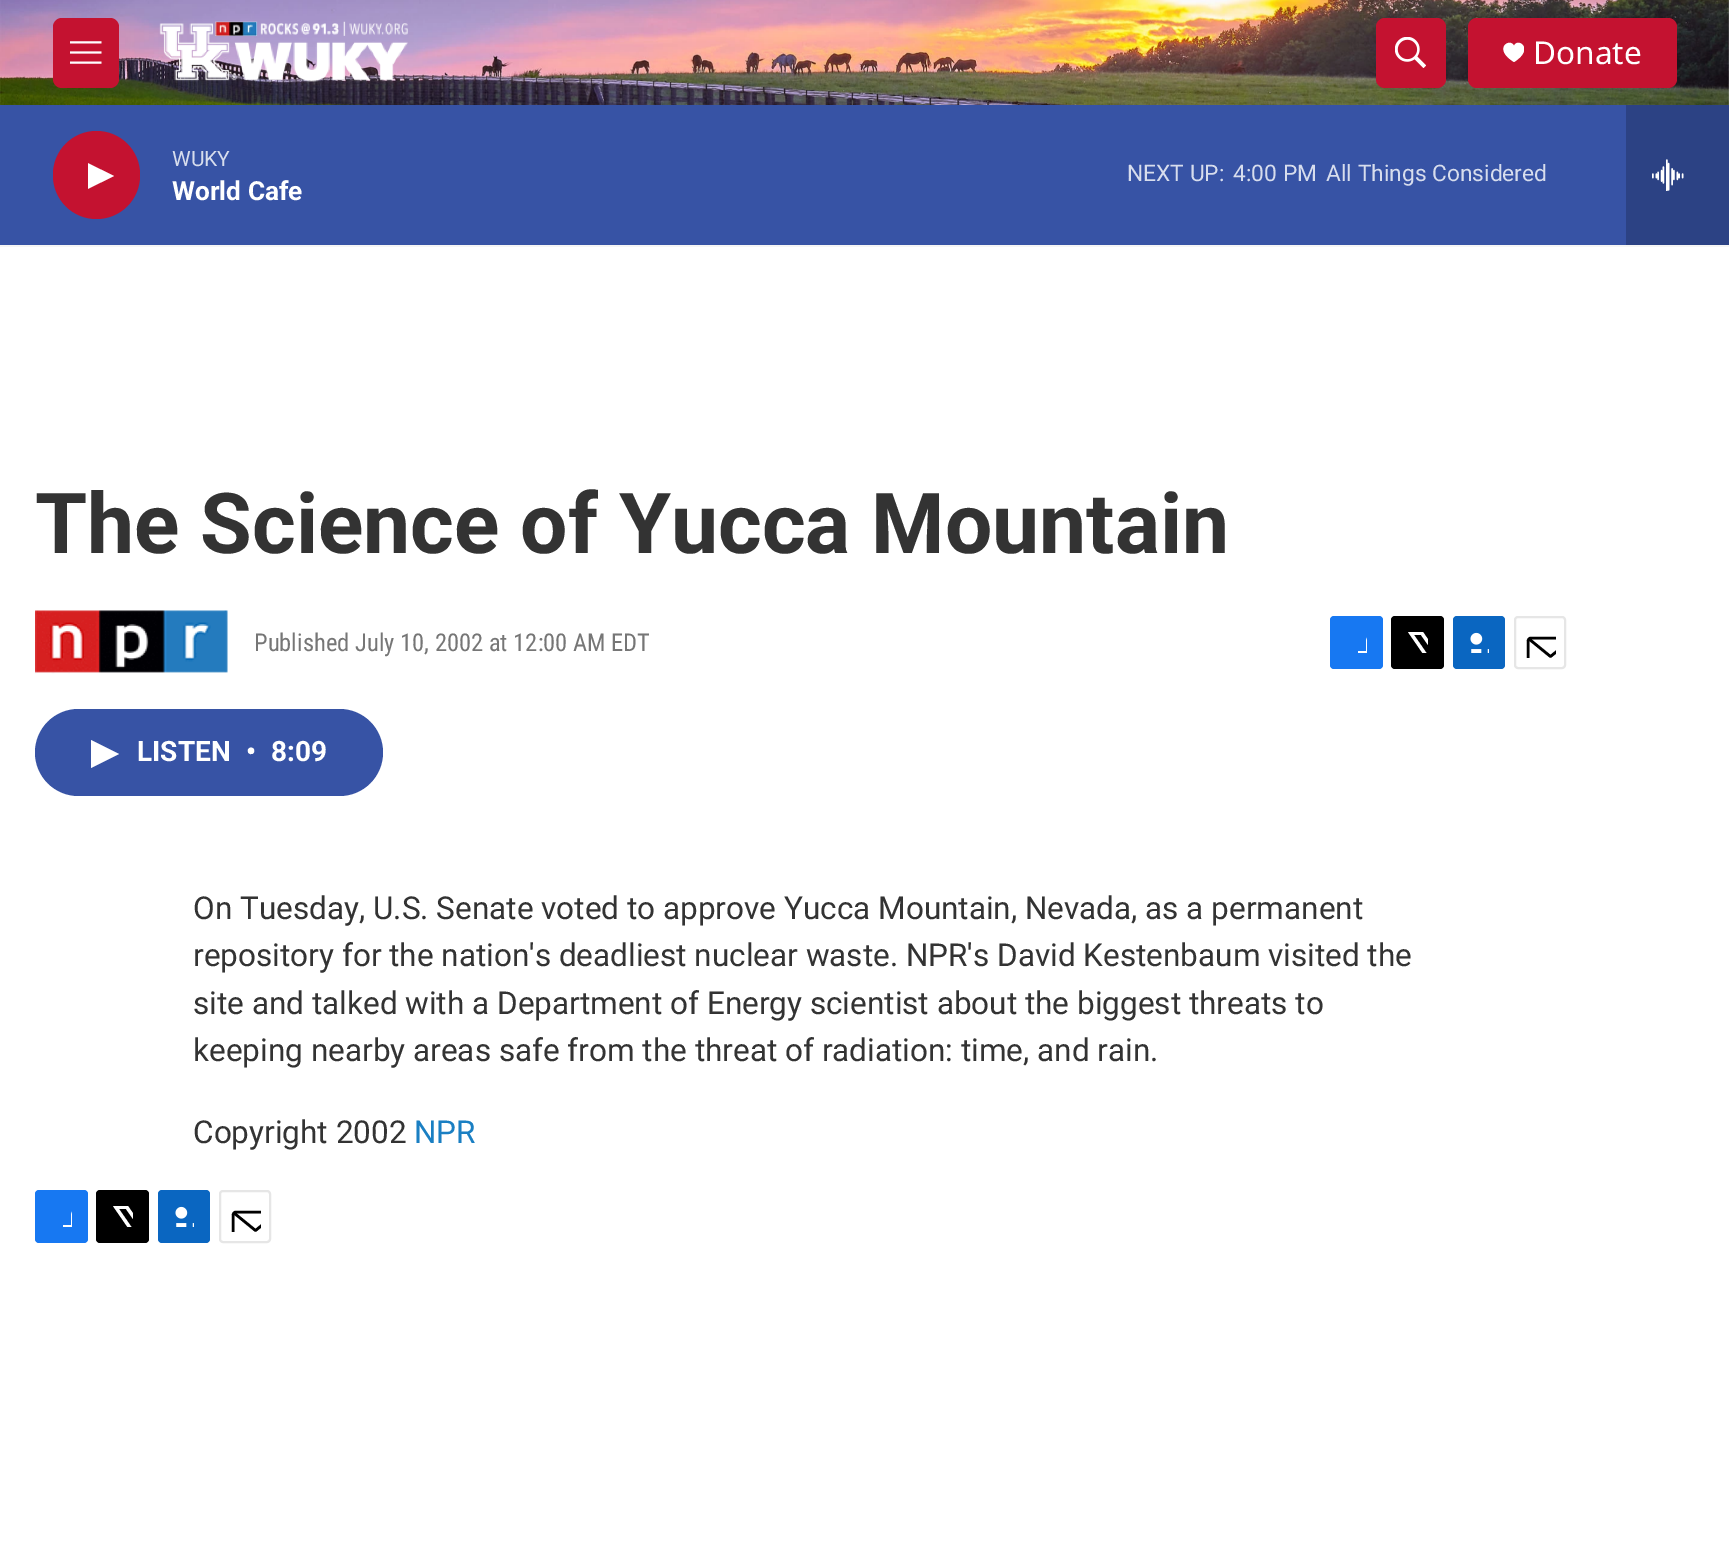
%!PS
<< /PageSize [1729 1557] >> setpagedevice
/mt/moveto load def
/li/lineto load def
/ct/curveto load def
/cp/closepath load def
/fl/fill load def
/st/stroke load def
/gs/gsave load def
/gr/grestore load def
/lw/setlinewidth load def
/co { dup -16 bitshift 255 div exch dup -8 bitshift 255 and 255 div exch 255 and 255 div setrgbcolor } def
/fn { [ exch dup neg 0 0 3 -1 roll 0 0 ] selectfont } def
/tx { co fn moveto show } def
/bx { co rectfill } def
/rr { 5 dict begin { /r /h /w /y /x } { exch def } forall
  x r add y moveto x w add y 2 copy h add r arct x w add y h add x 1 index r arct
  x y h add x y r arct x y 2 copy exch w add exch r arct closepath end } def
/im { 5 dict begin { /h /w /y /x /name } { exch def } forall
  gsave x y translate w h scale
  w h 8 [w 0 0 h 0 0] name (r) file false 3 colorimage grestore end } def
0 1557 translate 1 -1 scale
4 setmiterlimit
0 0 1729 1557 16#FFFFFF bx
0 245 1729 2 16#F5F5F5 bx
(media/1.raw) 0 0 1729 105 im
16#C41230 co
53 18 66 70 9 rr fl
(media/2.raw) 70 41 32 23 im
(media/3.raw) 159 21 249 61 im
1376 18 70 70 9 rr fl
(media/4.raw) 1395 37 31 31 im
1468 18 209 70 9 rr fl
gs
1503 42 21 21 rectclip
16#FFFFFF co
1514 46 mt 1510.5 37 1492 48.5 1514 62 ct 1535.5 48.5 1517 37 1514 46 ct cp fl
gr
0 105 1626 140 16#3753A5 bx
16#C41230 co
53 131 87 88 43.5 rr fl
gs
88 159 26 34 rectclip
16#FFFFFF co
87.5 163 mt 114 176 li 87.5 189 li cp fl
gr
1626 105 103 140 16#2C4284 bx
(media/5.raw) 1652 159 32 32 im
(media/6.raw) 35 610 193 64 im
16#1778F2 co
1330 616 53 53 4 rr fl
gs
1346 632 21 21 rectclip
16#FFFFFF co
1375 669 mt 1366 669 li 1366 660 li 1358 660 li 1358 651 li 1366 651 li 1366 641 li 1367 632.5 1375.5 632 1383 633 ct 1383 641 li 1373.5 641 1375 642.5 1375 651 ct 1383 651 li 1382 660 li 1375 660 li cp fl
gr
16#000000 co
1391 616 53 53 4 rr fl
gs
1407 632 21 21 rectclip
16#FFFFFF co
1438 654 mt 1444 662.5 li 1444 664 1444 666 1443.5 667 ct 1421 635 li 1414 635 li 1437.5 669 li 1433.5 669 li 1430 664 li 1425.5 669 li 1421 669 li 1428 661 li 1408 632 li 1423 632 li 1436 651 li 1444 642 li 1444 647 li cp fl
gr
16#0A66C1 co
1453 616 52 53 4 rr fl
(media/7.raw) 1470 632 19 21 im
16#E6E6E6 co
2 lw
1515 617 50 51 3 rr st
gs
1524 627 32 31 rectclip
16#000000 co
2.6 lw
1 setlinecap
1 setlinejoin
1573 665 mt 1573 666.5 1571.5 668 1570 668 ct 1531 668 li 1529.5 668 1528 666.5 1528 665 ct 1528 641.5 li 1528 639.5 1529.5 638 1531 638 ct 1570 638 li 1571.5 638 1573 639.5 1573 641.5 ct cp 1572 639 mt 1550.5 656.5 li 1529 639 li st
gr
16#3753A5 co
35 709 348 87 43.5 rr fl
16#FFFFFF co
91 740 mt 119 754 li 91 768 li cp fl
16#1778F2 co
35 1190 53 53 4 rr fl
gs
51 1206 21 21 rectclip
16#FFFFFF co
80 1243 mt 71 1243 li 71 1234 li 63 1234 li 63 1225 li 71 1225 li 71 1215 li 72 1206.5 80.5 1206 88 1207 ct 88 1215 li 78.5 1215 80 1216.5 80 1225 ct 88 1225 li 87 1234 li 80 1234 li cp fl
gr
16#000000 co
96 1190 53 53 4 rr fl
gs
112 1206 21 21 rectclip
16#FFFFFF co
143 1228 mt 149 1236.5 li 149 1238 149 1240 148.5 1241 ct 126 1209 li 119 1209 li 142.5 1243 li 138.5 1243 li 135 1238 li 130.5 1243 li 126 1243 li 133 1235 li 113 1206 li 128 1206 li 141 1225 li 149 1216 li 149 1221 li cp fl
gr
16#0A66C1 co
158 1190 52 53 4 rr fl
(media/7.raw) 175 1206 19 21 im
16#E6E6E6 co
220 1191 50 51 3 rr st
gs
229 1201 32 31 rectclip
16#000000 co
2.6 lw
1 setlinecap
1 setlinejoin
278 1239 mt 278 1240.5 276.5 1242 275 1242 ct 236 1242 li 234.5 1242 233 1240.5 233 1239 ct 233 1215.5 li 233 1213.5 234.5 1212 236 1212 ct 275 1212 li 276.5 1212 278 1213.5 278 1215.5 ct cp 277 1213 mt 255.5 1230.5 li 234 1213 li st
gr
(Donate) 1533 64 /NotoSans-Regular 31.5 16#FFFFFF tx
(WUKY) 172 166 /Roboto-Regular 21 16#D7DDED tx
(World Cafe) 172 200 /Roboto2-Bold 26.25 16#FFFFFF tx
(NEXT UP:) 1127 181 /Roboto-Regular 22.75 16#D7DDED tx
(4:00 PM) 1233 181 /Roboto-Regular 22.75 16#D7DDED tx
(All Things Considered) 1326 181 /Roboto-Regular 22.75 16#D7DDED tx
(The Science of Yucca Mountain) 35 553 /Roboto-Bold 84 16#333333 tx
(Published July 10, 2002 at 12:00 AM EDT) 254 651 /RobotoCondensed-Regular 24.5 16#767676 tx
(LISTEN) 137 761 /Roboto2-Bold 28 16#FFFFFF tx
(•) 246 761 /Roboto2-Bold 28 16#FFFFFF tx
(8:09) 271 761 /Roboto2-Bold 28 16#FFFFFF tx
(On Tuesday, U.S. Senate voted to approve Yucca Mountain, Nevada, as a permanent) 193 919 /Roboto-Regular 31.5 16#333333 tx
(repository for the nation's deadliest nuclear waste. NPR's David Kestenbaum visited the) 193 966 /Roboto-Regular 31.5 16#333333 tx
(site and talked with a Department of Energy scientist about the biggest threats to) 193 1014 /Roboto-Regular 31.5 16#333333 tx
(keeping nearby areas safe from the threat of radiation: time, and rain.) 193 1061 /Roboto-Regular 31.5 16#333333 tx
(Copyright 2002) 193 1143 /Roboto-Regular 31.5 16#333333 tx
(NPR) 414 1143 /Roboto-Regular 31.5 16#1A7FC3 tx
showpage
